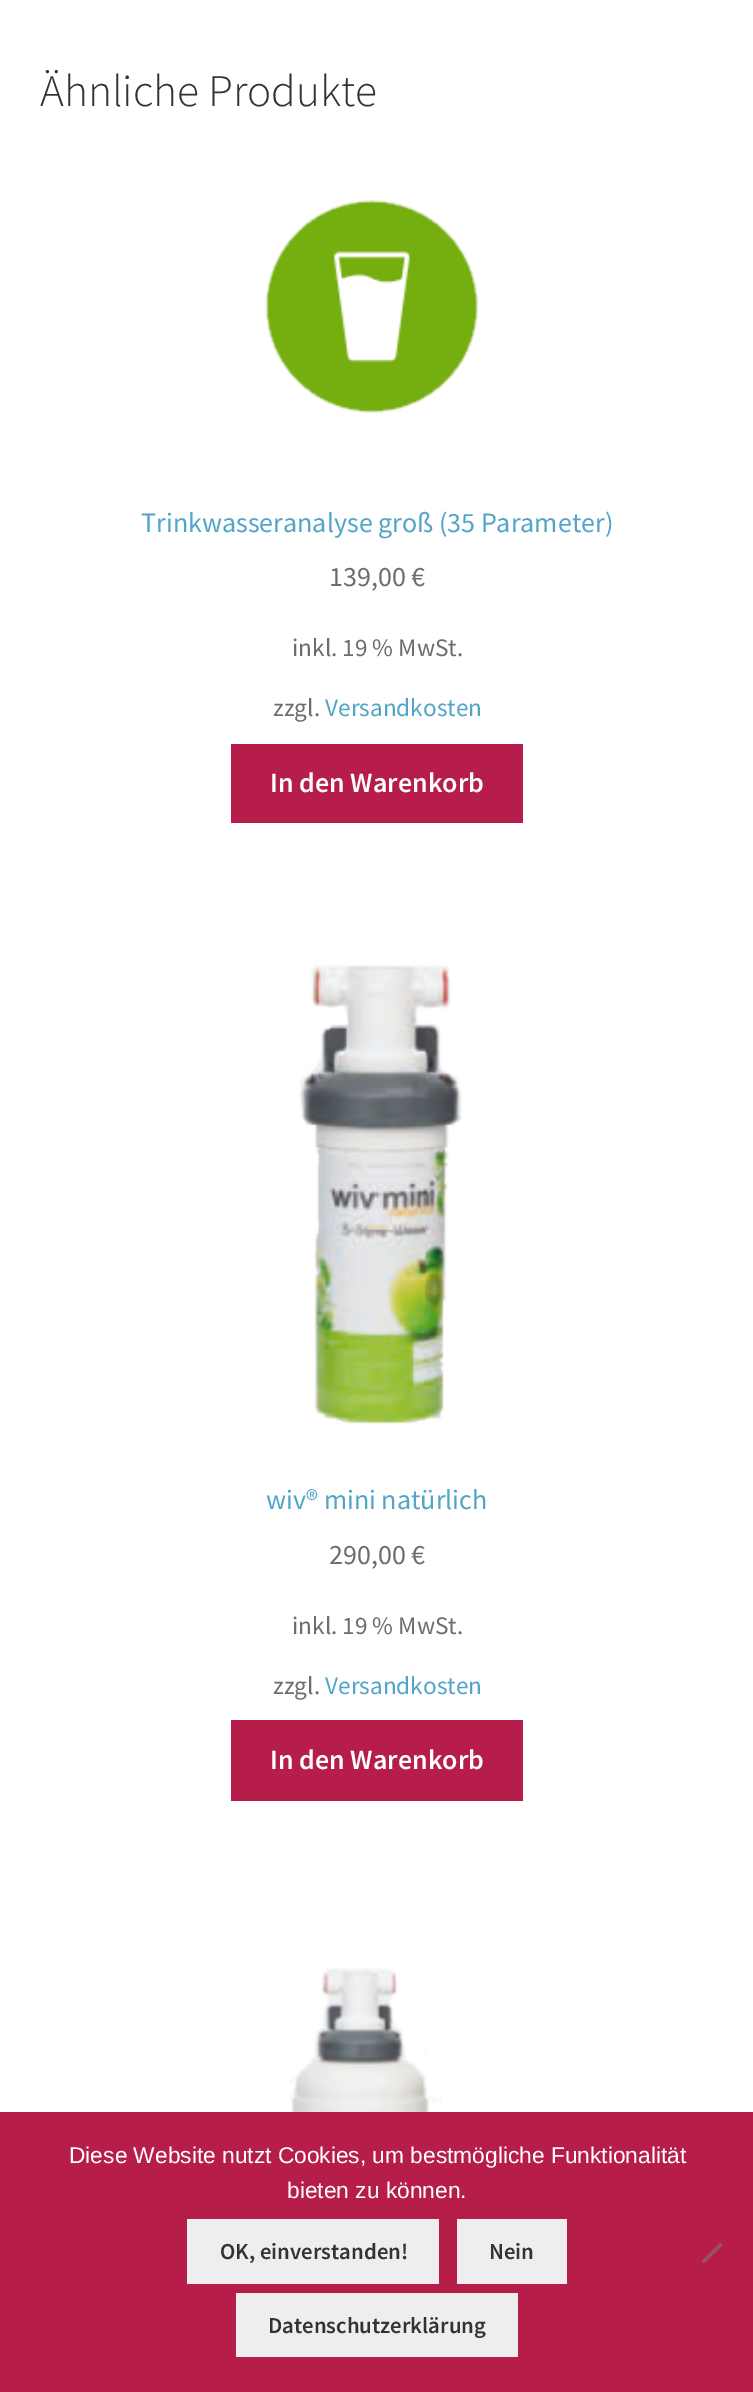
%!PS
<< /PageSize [753 2392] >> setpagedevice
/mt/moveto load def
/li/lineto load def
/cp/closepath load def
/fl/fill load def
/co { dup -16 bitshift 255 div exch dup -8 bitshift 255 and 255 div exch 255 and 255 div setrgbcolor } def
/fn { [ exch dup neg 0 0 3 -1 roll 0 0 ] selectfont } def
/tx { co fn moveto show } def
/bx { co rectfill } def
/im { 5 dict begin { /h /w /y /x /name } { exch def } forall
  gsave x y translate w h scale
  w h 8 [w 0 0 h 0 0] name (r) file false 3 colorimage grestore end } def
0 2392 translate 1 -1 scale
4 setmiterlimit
0 0 753 2392 16#FFFFFF bx
(media/1.raw) 265 200 214 213 im
231 744 292 79 16#B71D4A bx
(media/2.raw) 299 965 163 460 im
231 1720 292 81 16#B71D4A bx
(media/3.raw) 289 1968 153 144 im
0 2112 753 280 16#B61D49 bx
187 2219 252 65 16#EEEEEE bx
457 2219 110 65 16#EEEEEE bx
236 2293 282 64 16#EEEEEE bx
16#9B4F65 co
720.5 2242.5 mt 723 2245 li 704 2263.5 li 701.5 2261 li cp fl
(Ähnliche Produkte) 40 106 /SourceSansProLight-Light 45.25 16#333333 tx
(Trinkwasseranalyse groß \(35 Parameter\)) 141 532 /SourceSansPro-Regular 28 16#52A5C8 tx
(139,00 €) 329 586 /SourceSansPro-Regular 28 16#6D6D6D tx
(inkl. 19 % MwSt.) 292 656 /SourceSansPro-Regular 25.25 16#6D6D6D tx
(zzgl.) 273 716 /SourceSansPro-Regular 25.25 16#6D6D6D tx
(Versandkosten) 325 716 /SourceSansPro-Regular 25.25 16#52A5C8 tx
(In den Warenkorb) 270 792 /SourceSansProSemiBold-SemiBold 28 16#FFFFFF tx
(wiv® mini natürlich) 266 1509 /SourceSansPro-Regular 28 16#52A5C8 tx
(290,00 €) 329 1564 /SourceSansPro-Regular 28 16#6D6D6D tx
(inkl. 19 % MwSt.) 292 1634 /SourceSansPro-Regular 25.25 16#6D6D6D tx
(zzgl.) 273 1694 /SourceSansPro-Regular 25.25 16#6D6D6D tx
(Versandkosten) 325 1694 /SourceSansPro-Regular 25.25 16#52A5C8 tx
(In den Warenkorb) 270 1769 /SourceSansProSemiBold-SemiBold 28 16#FFFFFF tx
(Diese Website nutzt Cookies, um bestmögliche Funktionalität) 69 2163 /LiberationSans-Regular 22.75 16#FFFFFF tx
(bieten zu können.) 287 2198 /LiberationSans-Regular 22.75 16#FFFFFF tx
(OK, einverstanden!) 220 2259 /SourceSansProSemiBold-SemiBold 22.75 16#333333 tx
(Nein) 489 2259 /SourceSansProSemiBold-SemiBold 22.75 16#333333 tx
(Datenschutzerklärung) 268 2333 /SourceSansProSemiBold-SemiBold 22.75 16#333333 tx
showpage
